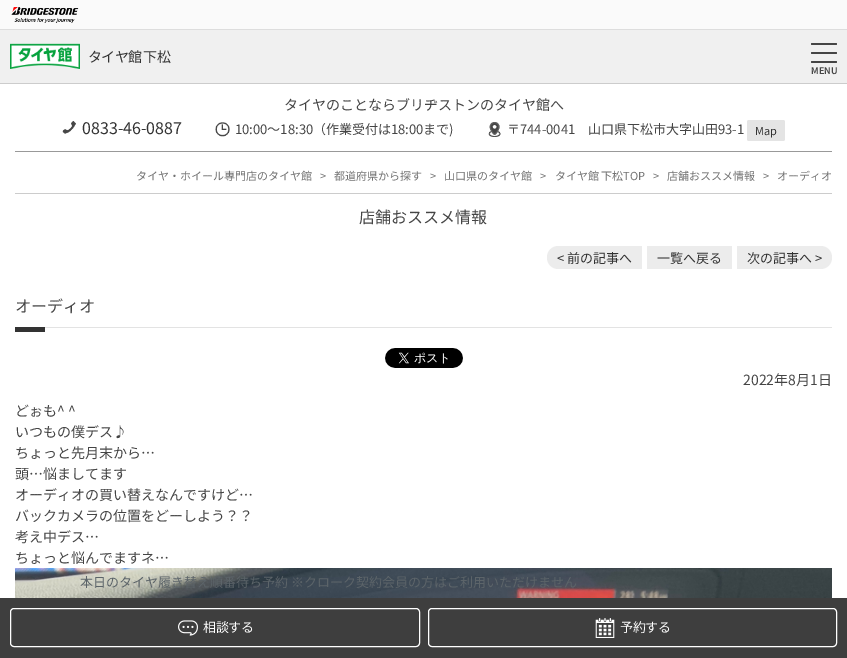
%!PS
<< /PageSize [847 658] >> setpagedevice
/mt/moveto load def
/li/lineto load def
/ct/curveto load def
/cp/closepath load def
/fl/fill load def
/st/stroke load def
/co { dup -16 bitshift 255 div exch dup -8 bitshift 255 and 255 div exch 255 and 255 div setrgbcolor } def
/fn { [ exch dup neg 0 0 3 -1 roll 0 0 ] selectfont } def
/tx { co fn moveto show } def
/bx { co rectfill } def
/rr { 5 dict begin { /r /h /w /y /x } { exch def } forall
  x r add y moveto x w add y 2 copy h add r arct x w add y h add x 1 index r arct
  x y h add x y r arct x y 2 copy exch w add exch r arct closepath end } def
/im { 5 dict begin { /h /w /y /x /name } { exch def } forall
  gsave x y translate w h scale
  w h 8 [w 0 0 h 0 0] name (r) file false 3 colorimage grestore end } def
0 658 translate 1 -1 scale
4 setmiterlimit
0 0 847 658 16#FFFFFF bx
0 0 847 29 16#FAFAFA bx
0 29 847 1 16#DDDDDD bx
(media/1.raw) 11 7 68 16 im
0 30 847 53 16#F0F0F0 bx
0 83 847 1 16#CCCCCC bx
(media/2.raw) 10 43 70 26 im
16#454545 co
811 43 26 2 1 rr fl
811 52 26 2 1 rr fl
811 61 26 2 1 rr fl
15 151 817 1 16#999999 bx
(media/3.raw) 62 121 14 13 im
(media/4.raw) 215 122 15 15 im
(media/5.raw) 488 122 13 15 im
16#E4E4E4 co
747 120 38 21 2 rr fl
15 193 817 1 16#CCCCCC bx
16#ECECEC co
558.5 246 mt 642 246 li 642 269 li 558.5 269 li 552 269 547 264 547 257.5 ct 547 251 552 246 558.5 246 ct cp fl
647 246 85 23 16#ECECEC bx
737 246 mt 820.5 246 li 827 246 832 251 832 257.5 ct 832 264 827 269 820.5 269 ct 737 269 li cp fl
45 327 787 1 16#E3E3E3 bx
15 327 30 5 16#333333 bx
(media/6.raw) 385 348 78 20 im
(media/7.raw) 15 568 817 30 im
0 598 847 60 16#3E3E3E bx
16#FFFFFF co
10.5 608.5 409 38 3.5 rr st
(media/8.raw) 178 620 20 16 im
428.5 608.5 408 38 3.5 rr st
(media/9.raw) 595 618 20 20 im
/NotoSansJP-Regular 14 fn
16#333333 co
88 62 mt -.75 0 (タイヤ館 下松) ashow
(MENU) 811 74 /NotoSansJP-SemiBold 9 16#454545 tx
(タイヤのことならブリヂストンのタイヤ館へ) 284 110 /NotoSansJP-Regular 14 16#454545 tx
(0833-46-0887) 82 134 /NotoSansJP-Regular 16 16#333333 tx
(10:00～18:30（作業受付は18:00まで\)) 235 134 /NotoSansJP-Regular 13 16#454545 tx
(〒744-0041　山口県下松市大字山田93-1) 507 134 /NotoSansJP-Regular 13 16#454545 tx
(Map) 755 135 /NotoSansJP-Regular 11 16#333333 tx
(タイヤ・ホイール専門店のタイヤ館) 136 180 /NotoSansJP-Regular 11 16#727272 tx
(>) 320 180 /NotoSansJP-Regular 11 16#727272 tx
(都道府県から探す) 334 180 /NotoSansJP-Regular 11 16#727272 tx
(>) 430 180 /NotoSansJP-Regular 11 16#727272 tx
(山口県のタイヤ館) 444 180 /NotoSansJP-Regular 11 16#727272 tx
(>) 540 180 /NotoSansJP-Regular 11 16#727272 tx
(タイヤ館 下松TOP) 555 180 /NotoSansJP-Regular 11 16#727272 tx
(>) 653 180 /NotoSansJP-Regular 11 16#727272 tx
(店舗おススメ情報) 667 180 /NotoSansJP-Regular 11 16#727272 tx
(>) 763 180 /NotoSansJP-Regular 11 16#727272 tx
(オーディオ) 777 180 /NotoSansJP-Regular 11 16#727272 tx
(店舗おススメ情報) 359 223 /NotoSansJP-Regular 16 16#454545 tx
(< 前の記事へ) 557 263 /NotoSansJP-Regular 13 16#333333 tx
(一覧へ戻る) 657 263 /NotoSansJP-Regular 13 16#333333 tx
(次の記事へ >) 747 263 /NotoSansJP-Regular 13 16#333333 tx
(オーディオ) 15 312 /NotoSansJP-Regular 16 16#454545 tx
(2022年8月1日) 743 385 /NotoSansJP-Regular 14 16#454545 tx
(どぉも^ ^) 15 416 /NotoSansJP-Regular 14 16#454545 tx
(いつもの僕デス♪) 15 437 /NotoSansJP-Regular 14 16#454545 tx
(ちょっと先月末から…) 15 458 /NotoSansJP-Regular 14 16#454545 tx
(頭…悩ましてます) 15 479 /NotoSansJP-Regular 14 16#454545 tx
(オーディオの買い替えなんですけど…) 15 500 /NotoSansJP-Regular 14 16#454545 tx
(バックカメラの位置をどーしよう？？) 15 521 /NotoSansJP-Regular 14 16#454545 tx
(考え中デス…) 15 542 /NotoSansJP-Regular 14 16#454545 tx
(ちょっと悩んでますネ…) 15 563 /NotoSansJP-Regular 14 16#454545 tx
(本日のタイヤ履き替え順番待ち予約 ※クローク契約会員の方はご利用いただけません) 80 587 /NotoSansJP-Regular 13 16#5C6469 tx
16#FFFFFF co
203 632 mt -.5 0 (相談する) ashow
620 632 mt -.5 0 (予約する) ashow
showpage
